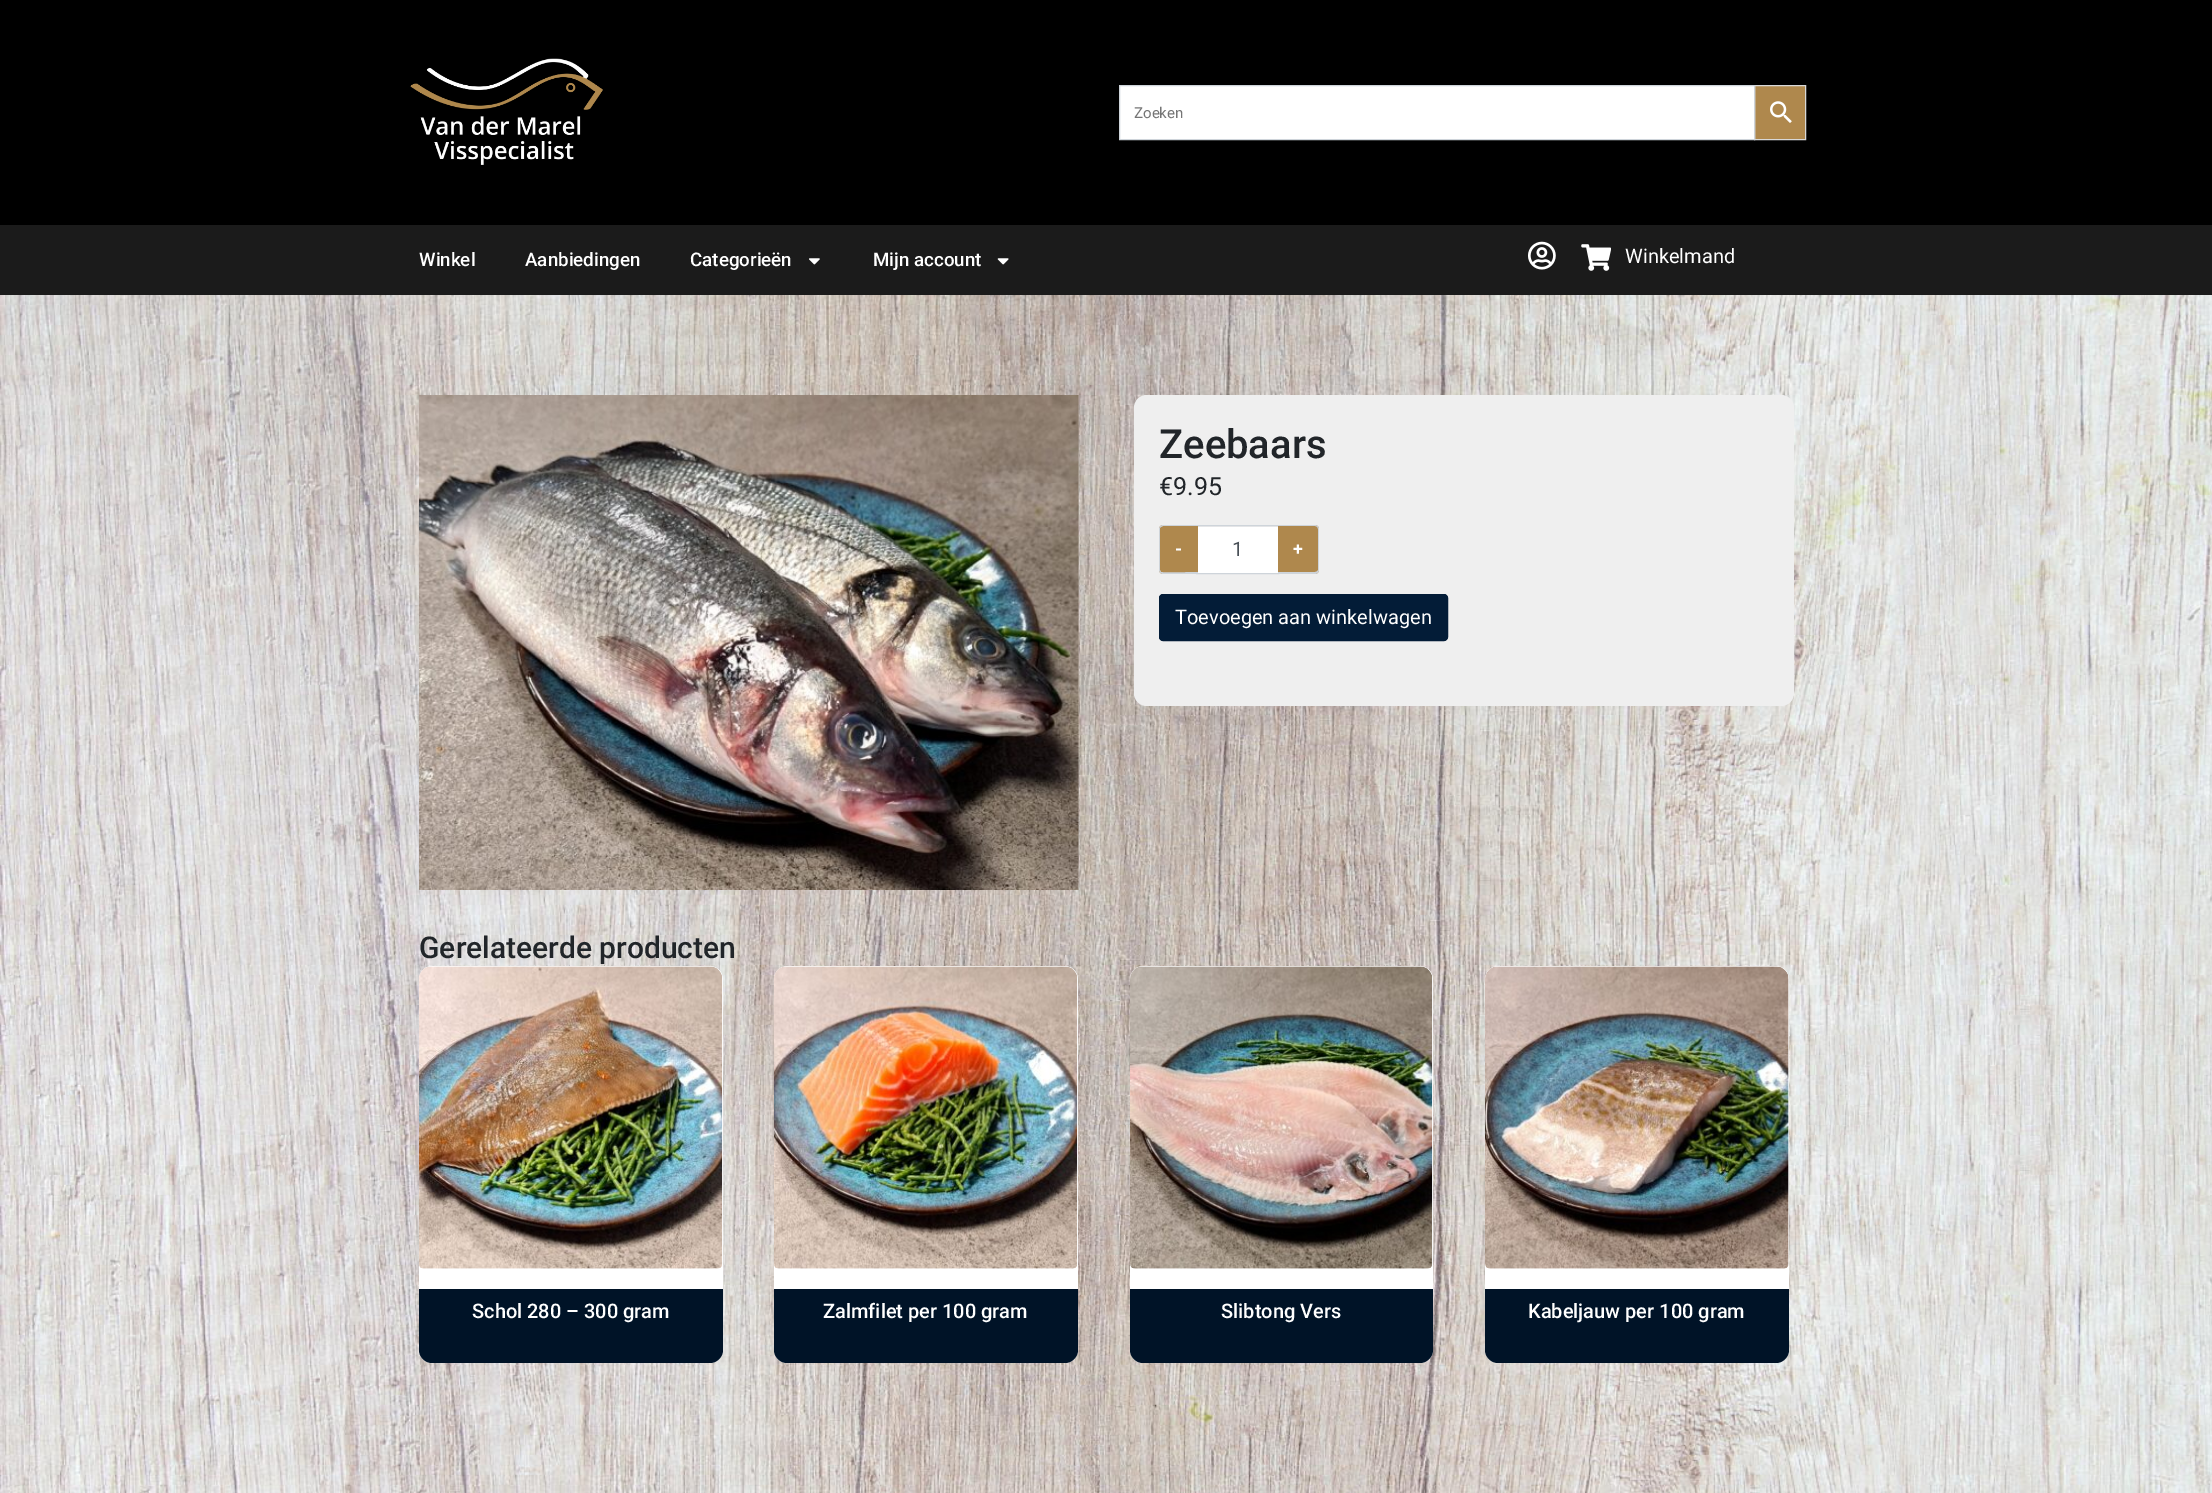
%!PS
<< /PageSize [2212 1493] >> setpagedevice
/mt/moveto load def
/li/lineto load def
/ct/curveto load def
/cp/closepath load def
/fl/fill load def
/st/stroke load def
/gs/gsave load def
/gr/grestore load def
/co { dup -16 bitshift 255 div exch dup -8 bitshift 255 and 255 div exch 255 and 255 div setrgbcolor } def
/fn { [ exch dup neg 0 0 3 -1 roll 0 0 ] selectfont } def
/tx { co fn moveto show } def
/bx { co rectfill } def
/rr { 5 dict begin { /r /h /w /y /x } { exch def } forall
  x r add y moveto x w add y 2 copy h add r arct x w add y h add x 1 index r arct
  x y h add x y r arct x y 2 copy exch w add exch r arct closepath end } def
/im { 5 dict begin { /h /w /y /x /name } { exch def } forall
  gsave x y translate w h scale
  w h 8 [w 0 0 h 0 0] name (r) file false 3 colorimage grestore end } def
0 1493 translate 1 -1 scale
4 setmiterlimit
0 0 2212 1493 16#FFFFFF bx
0 0 2212 225 16#000000 bx
(media/1.raw) 410 58 193 107 im
16#AF884D co
1754.5 85.5 mt 1805.5 85.5 li 1805.5 139.5 li 1754.5 139.5 li cp gs fl gr
16#D8D8D8 co
st
16#FFFFFF co
1119.5 85.5 mt 1754.5 85.5 li 1754.5 139.5 li 1119.5 139.5 li cp gs fl gr
16#CED4DA co
st
(media/2.raw) 1770 101 22 22 im
0 225 2212 70 16#1B1B1B bx
(media/3.raw) 809 258 11 7 im
(media/4.raw) 997 258 12 7 im
(media/5.raw) 1528 241 28 29 im
(media/6.raw) 1581 244 30 27 im
(media/7.raw) 0 295 2212 1198 im
(media/8.raw) 418 395 661 495 im
16#EFEFEF co
1134 395 660 311 13 rr fl
1198 527 80 46 16#FFFFFF bx
1198 526 80 1 16#ECECEC bx
16#CED4DA co
1196.5 525.5 82 48 rectstroke
16#AF884D co
1163 525 mt 1198 525 li 1198 574 li 1163 574 li 1161 574 1159 572 1159 570 ct 1159 529 li 1159 527 1161 525 1163 525 ct cp fl
16#CED4DA co
1163 525 mt 1198 525 li 1198 574 li 1163 574 li 1161 574 1159 572 1159 570 ct 1159 529 li 1159 527 1161 525 1163 525 ct cp 1163 526 mt 1198 526 li 1198 572 li 1193 572 1163 573 1161 572 ct 1160 570 li 1160 528 li 1161 527 li cp eofill
16#AF884D co
1278 525 mt 1315 525 li 1317 525 1319 527 1319 529 ct 1319 570 li 1319 572 1317 574 1315 574 ct 1278 574 li cp fl
16#CED4DA co
1278 525 mt 1315 525 li 1317 525 1319 527 1319 529 ct 1319 570 li 1319 572 1317 574 1315 574 ct 1278 574 li cp 1278 526 mt 1315 526 li 1316 526 1318 527 1318 529 ct 1318 570 li 1318 571 1316 572 1315 572 ct 1278 572 li cp eofill
16#031C37 co
1159.5 594.5 288 46 3.5 rr gs fl gr
st
16#FFFFFF co
419 966 304 397 13 rr fl
(media/9.raw) 419 966 304 303 im
16#001327 co
419 1289 mt 723 1289 li 723 1350 li 723 1357 717 1363 710 1363 ct 432 1363 li 425 1363 419 1357 419 1350 ct cp fl
16#FFFFFF co
774 966 304 397 13 rr fl
(media/10.raw) 774 966 304 303 im
16#001327 co
774 1289 mt 1078 1289 li 1078 1350 li 1078 1357 1072 1363 1065 1363 ct 787 1363 li 780 1363 774 1357 774 1350 ct cp fl
16#FFFFFF co
1130 966 303 397 13 rr fl
(media/11.raw) 1130 966 303 303 im
16#001327 co
1130 1289 mt 1433 1289 li 1433 1350 li 1433 1357 1427 1363 1420 1363 ct 1143 1363 li 1136 1363 1130 1357 1130 1350 ct cp fl
16#FFFFFF co
1485 966 304 397 13 rr fl
(media/12.raw) 1485 966 304 303 im
16#001327 co
1485 1289 mt 1789 1289 li 1789 1350 li 1789 1357 1783 1363 1776 1363 ct 1498 1363 li 1491 1363 1485 1357 1485 1350 ct cp fl
(Zoeken) 1134 118 /Roboto-Regular 15 16#757575 tx
(Winkel) 419 266 /Roboto-Medium 18.75 16#FFFFFF tx
(Aanbiedingen) 525 266 /Roboto-Medium 18.75 16#FFFFFF tx
(Categorieën) 690 266 /Roboto-Medium 18.75 16#FFFFFF tx
(Mijn account) 873 266 /Roboto-Medium 18.75 16#FFFFFF tx
(Winkelmand) 1625 263 /Roboto-Regular 20 16#FFFFFF tx
(Zeebaars) 1159 458 /Roboto-Medium 40 16#212529 tx
(€9.95) 1159 495 /Roboto-Regular 25 16#212529 tx
(-) 1175 555 /Roboto-Bold 18 16#FFFFFF tx
(1) 1232 556 /Roboto-Regular 20 16#495057 tx
(+) 1293 555 /Roboto-Bold 18 16#FFFFFF tx
(Toevoegen aan winkelwagen) 1175 624 /Roboto-Regular 20 16#FFFFFF tx
(Gerelateerde producten) 419 958 /Roboto-Medium 30 16#212529 tx
(Schol 280 – 300 gram) 472 1318 /Roboto-Medium 20 16#FFFFFF tx
(Zalmfilet per 100 gram) 823 1318 /Roboto-Medium 20 16#FFFFFF tx
(Slibtong Vers) 1221 1318 /Roboto-Medium 20 16#FFFFFF tx
(Kabeljauw per 100 gram) 1528 1318 /Roboto-Medium 20 16#FFFFFF tx
showpage
